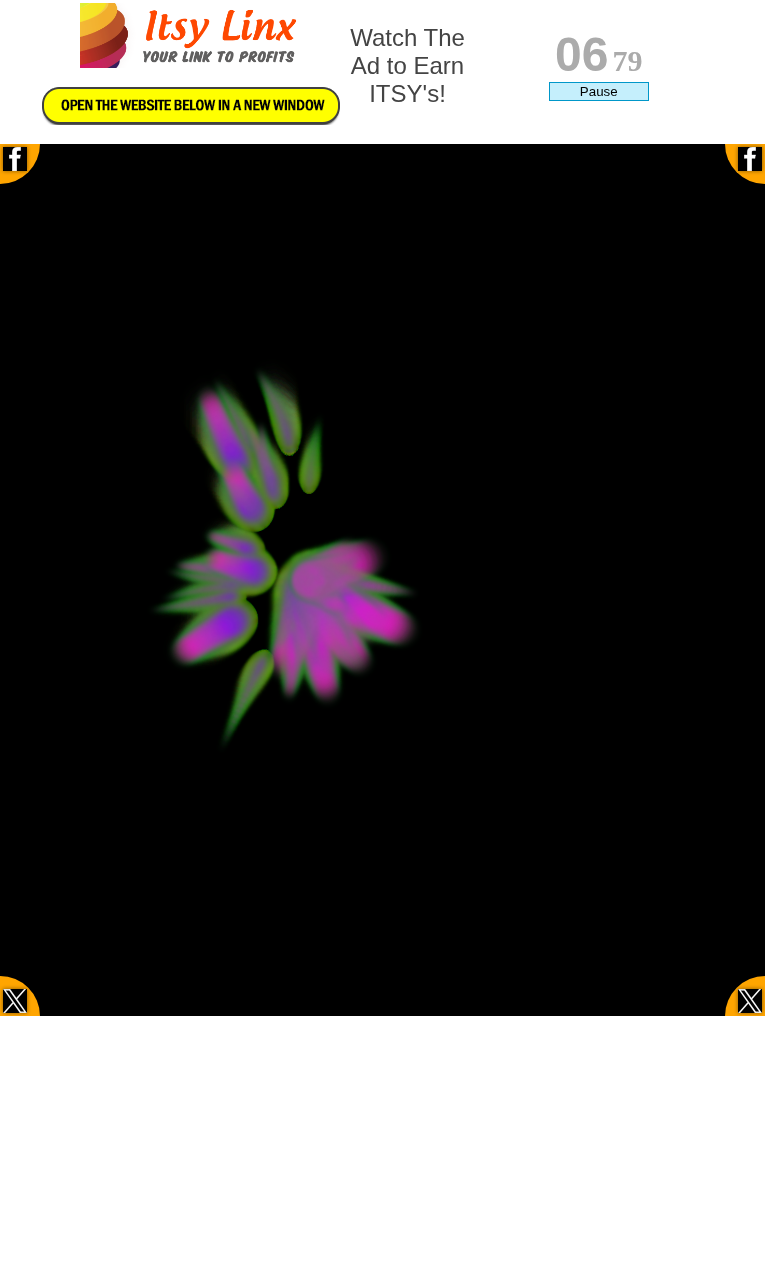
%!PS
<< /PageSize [765 1265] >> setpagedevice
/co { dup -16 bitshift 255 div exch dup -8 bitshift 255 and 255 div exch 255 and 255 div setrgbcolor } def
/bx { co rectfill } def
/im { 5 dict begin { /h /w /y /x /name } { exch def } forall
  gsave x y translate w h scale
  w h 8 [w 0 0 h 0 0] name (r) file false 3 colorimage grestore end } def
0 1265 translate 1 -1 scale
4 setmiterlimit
0 0 765 1265 16#FFFFFF bx
(media/1.raw) 42 3 607 122 im
(media/2.raw) 0 144 765 872 im
showpage
